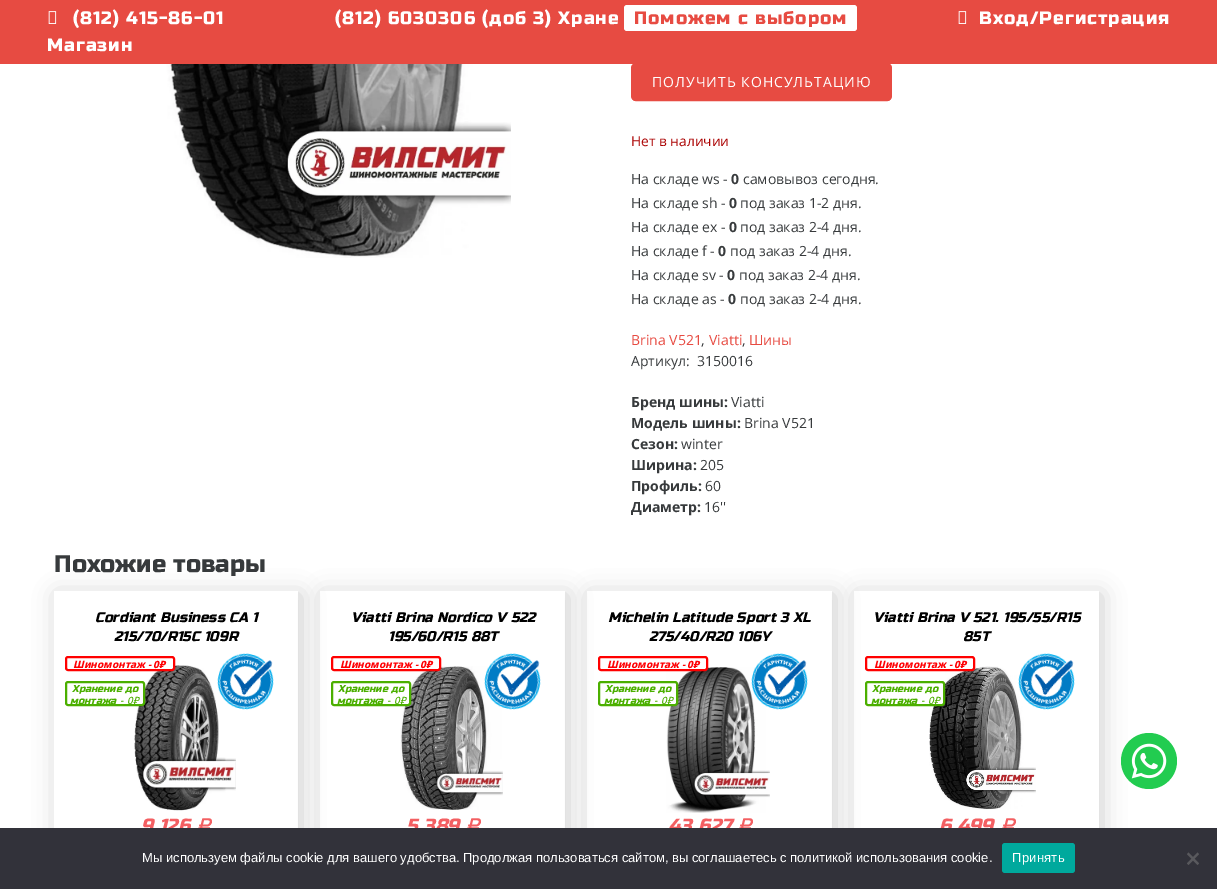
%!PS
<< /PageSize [1217 889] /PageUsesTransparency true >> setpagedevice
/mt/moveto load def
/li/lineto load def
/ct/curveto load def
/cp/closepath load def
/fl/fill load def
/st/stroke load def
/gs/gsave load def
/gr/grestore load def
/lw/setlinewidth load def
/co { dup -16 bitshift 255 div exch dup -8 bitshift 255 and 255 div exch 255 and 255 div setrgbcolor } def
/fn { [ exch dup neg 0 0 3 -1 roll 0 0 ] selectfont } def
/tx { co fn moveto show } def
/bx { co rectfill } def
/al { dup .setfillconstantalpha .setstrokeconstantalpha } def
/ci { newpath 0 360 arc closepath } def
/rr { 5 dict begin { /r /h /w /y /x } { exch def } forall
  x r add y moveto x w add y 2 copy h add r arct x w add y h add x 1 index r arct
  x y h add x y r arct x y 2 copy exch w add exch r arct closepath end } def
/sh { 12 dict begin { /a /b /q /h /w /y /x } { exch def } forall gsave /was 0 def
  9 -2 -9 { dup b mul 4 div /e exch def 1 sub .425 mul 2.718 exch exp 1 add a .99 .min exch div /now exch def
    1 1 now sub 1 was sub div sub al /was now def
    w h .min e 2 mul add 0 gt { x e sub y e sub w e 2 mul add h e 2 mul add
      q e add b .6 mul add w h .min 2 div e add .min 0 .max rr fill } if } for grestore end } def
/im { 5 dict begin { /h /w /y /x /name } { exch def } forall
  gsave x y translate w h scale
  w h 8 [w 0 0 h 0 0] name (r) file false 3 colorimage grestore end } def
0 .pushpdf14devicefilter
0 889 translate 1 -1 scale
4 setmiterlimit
0 0 1217 889 16#FFFFFF bx
16#E74B42 co
631 63 261 38 5 rr fl
0 0 1217 64 16#E74B42 bx
(media/1.raw) 48 11 9 13 im
16#FFFFFF co
624 5 233 26 3 rr fl
(media/1.raw) 958 11 9 13 im
(media/2.raw) 166 64 345 194 im
16#E74B42 co
890 99 mt 889.5 100 888 100.5 887 100.5 ct 636 100.5 li 635 100.5 633.5 100 633 99 ct st
gs
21 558 mt 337 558 li 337 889 li 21 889 li cp 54 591 mt 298 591 li 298 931 li 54 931 li cp eoclip newpath
16#CCCCCC co
57 594 244 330 0 11.5 1 sh
gr
(media/3.raw) 134 665 102 146 im
(media/4.raw) 217 653 57 57 im
16#FFFFFF co
66 657 108 13 2 rr gs fl gr
16#FF0000 co
2 lw
st
16#FFFFFF co
66 682 78 23 2 rr gs fl gr
16#4BAF00 co
st
gs
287 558 mt 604 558 li 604 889 li 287 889 li cp 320 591 mt 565 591 li 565 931 li 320 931 li cp eoclip newpath
16#CCCCCC co
323 594 245 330 0 11.5 1 sh
gr
(media/5.raw) 400 666 103 144 im
(media/6.raw) 484 653 57 57 im
16#FFFFFF co
332 657 108 13 2 rr gs fl gr
16#FF0000 co
st
16#FFFFFF co
332 682 78 23 2 rr gs fl gr
16#4BAF00 co
st
gs
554 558 mt 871 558 li 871 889 li 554 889 li cp 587 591 mt 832 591 li 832 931 li 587 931 li cp eoclip newpath
16#CCCCCC co
590 594 245 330 0 11.5 1 sh
gr
(media/7.raw) 666 667 104 146 im
(media/8.raw) 751 653 57 57 im
16#FFFFFF co
599 657 108 13 2 rr gs fl gr
16#FF0000 co
st
16#FFFFFF co
599 682 78 23 2 rr gs fl gr
16#4BAF00 co
st
gs
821 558 mt 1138 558 li 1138 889 li 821 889 li cp 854 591 mt 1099 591 li 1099 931 li 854 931 li cp eoclip newpath
16#CCCCCC co
857 594 245 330 0 11.5 1 sh
gr
(media/9.raw) 929 666 107 144 im
(media/10.raw) 1018 653 57 57 im
16#FFFFFF co
866 657 108 13 2 rr gs fl gr
16#FF0000 co
st
16#FFFFFF co
866 682 78 23 2 rr gs fl gr
16#4BAF00 co
st
16#22CC50 co
1149 761 28 ci fl
(media/11.raw) 1131 743 36 36 im
/RussoOne-Regular 18 fn
16#FFFFFF co
73 24 mt 1 0 (\(812\) 415-86-01) ashow
47 51 mt 1 0 (Магазин) ashow
335 24 mt 1 0 (\(812\) 6030306 \(доб 3\) Хране) ashow
16#E74B42 co
634 24 mt 1 0 (Поможем с выбором) ashow
16#FFFFFF co
979 24 mt 1 0 (Вход/Регистрация) ashow
/OpenSans-Regular 14 fn
652 87 mt 1 0 (ПОЛУЧИТЬ КОНСУЛЬТАЦИЮ) ashow
(Нет в наличии) 631 146 /OpenSans-Regular 13.75 16#AA0000 tx
(На складе ws -) 631 184 /OpenSans-Regular 14 16#373A3C tx
(0) 731 184 /OpenSans-Bold 14 16#373A3C tx
(cамовывоз сегодня.) 743 184 /OpenSans-Regular 14 16#373A3C tx
(На складе sh -) 631 208 /OpenSans-Regular 14 16#373A3C tx
(0) 729 208 /OpenSans-Bold 14 16#373A3C tx
(под заказ 1-2 дня.) 740 208 /OpenSans-Regular 14 16#373A3C tx
(На складе ex -) 631 232 /OpenSans-Regular 14 16#373A3C tx
(0) 729 232 /OpenSans-Bold 14 16#373A3C tx
(под заказ 2-4 дня.) 740 232 /OpenSans-Regular 14 16#373A3C tx
(На складе f -) 631 256 /OpenSans-Regular 14 16#373A3C tx
(0) 718 256 /OpenSans-Bold 14 16#373A3C tx
(под заказ 2-4 дня.) 730 256 /OpenSans-Regular 14 16#373A3C tx
(На складе sv -) 631 280 /OpenSans-Regular 14 16#373A3C tx
(0) 727 280 /OpenSans-Bold 14 16#373A3C tx
(под заказ 2-4 дня.) 739 280 /OpenSans-Regular 14 16#373A3C tx
(На складе as -) 631 304 /OpenSans-Regular 14 16#373A3C tx
(0) 728 304 /OpenSans-Bold 14 16#373A3C tx
(под заказ 2-4 дня.) 740 304 /OpenSans-Regular 14 16#373A3C tx
(Brina V521) 631 345 /OpenSans-Regular 14 16#E74B42 tx
(,) 701 345 /OpenSans-Regular 14 16#373A3C tx
(Viatti) 709 345 /OpenSans-Regular 14 16#E74B42 tx
(,) 742 345 /OpenSans-Regular 14 16#373A3C tx
(Шины) 749 345 /OpenSans-Regular 14 16#E74B42 tx
(Артикул:) 631 366 /OpenSans-Regular 14 16#373A3C tx
(3150016) 697 366 /OpenSans-Regular 14 16#373A3C tx
(Бренд шины:) 631 407 /OpenSans-Bold 14 16#373A3C tx
(Viatti) 731 407 /OpenSans-Regular 14 16#373A3C tx
(Модель шины:) 631 428 /OpenSans-Bold 14 16#373A3C tx
(Brina V521) 744 428 /OpenSans-Regular 14 16#373A3C tx
(Сезон:) 631 449 /OpenSans-Bold 14 16#373A3C tx
(winter) 681 449 /OpenSans-Regular 14 16#373A3C tx
(Ширина:) 631 470 /OpenSans-Bold 14 16#373A3C tx
(205) 700 470 /OpenSans-Regular 14 16#373A3C tx
(Профиль:) 631 491 /OpenSans-Bold 14 16#373A3C tx
(60) 705 491 /OpenSans-Regular 14 16#373A3C tx
(Диаметр:) 631 512 /OpenSans-Bold 14 16#373A3C tx
(16'') 704 512 /OpenSans-Regular 14 16#373A3C tx
(Похожие товары) 54 572 /RussoOne-Regular 24 16#373A3C tx
(Cordiant Business CA 1) 95 622 /RussoOne-Italic 14 16#000000 tx
(215/70/R15C 109R) 114 641 /RussoOne-Italic 14 16#000000 tx
(9 126) 141 832 /RussoOne-Italic 19 16#F35F62 tx
(Р) 196 832 /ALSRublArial-BoldItalic 19 16#F35F62 tx
(Шиномонтаж - 0₽) 73 668 /NotoSans-ExtraBoldItalic 10 16#FF0003 tx
(Хранение до) 72 692 /RussoOne-Italic 10 16#4BAF00 tx
(монтажа) 70 704 /RussoOne-Italic 10 16#4BAF00 tx
/NotoSans-MediumItalic 10 fn
120 704 mt 1 0 32 (- 0₽) widthshow
(Viatti Brina Nordico V 522) 351 622 /RussoOne-Italic 14 16#000000 tx
(195/60/R15 88T) 388 641 /RussoOne-Italic 14 16#000000 tx
(5 389) 406 832 /RussoOne-Italic 19 16#F35F62 tx
(Р) 465 832 /ALSRublArial-BoldItalic 19 16#F35F62 tx
(Шиномонтаж - 0₽) 340 668 /NotoSans-ExtraBoldItalic 10 16#FF0003 tx
(Хранение до) 338 692 /RussoOne-Italic 10 16#4BAF00 tx
(монтажа) 337 704 /RussoOne-Italic 10 16#4BAF00 tx
/NotoSans-MediumItalic 10 fn
387 704 mt 1 0 32 (- 0₽) widthshow
(Michelin Latitude Sport 3 XL) 608 622 /RussoOne-Italic 14 16#000000 tx
(275/40/R20 106Y) 649 641 /RussoOne-Italic 14 16#000000 tx
(43 627) 668 832 /RussoOne-Italic 19 16#F35F62 tx
(Р) 737 832 /ALSRublArial-BoldItalic 19 16#F35F62 tx
(Шиномонтаж - 0₽) 607 668 /NotoSans-ExtraBoldItalic 10 16#FF0003 tx
(Хранение до) 605 692 /RussoOne-Italic 10 16#4BAF00 tx
(монтажа) 604 704 /RussoOne-Italic 10 16#4BAF00 tx
/NotoSans-MediumItalic 10 fn
654 704 mt 1 0 32 (- 0₽) widthshow
(Viatti Brina V 521. 195/55/R15) 873 622 /RussoOne-Italic 14 16#000000 tx
(85T) 963 641 /RussoOne-Italic 14 16#000000 tx
(6 499) 939 832 /RussoOne-Italic 19 16#F35F62 tx
(Р) 1000 832 /ALSRublArial-BoldItalic 19 16#F35F62 tx
(Шиномонтаж - 0₽) 874 668 /NotoSans-ExtraBoldItalic 10 16#FF0003 tx
(Хранение до) 872 692 /RussoOne-Italic 10 16#4BAF00 tx
(монтажа) 871 704 /RussoOne-Italic 10 16#4BAF00 tx
/NotoSans-MediumItalic 10 fn
921 704 mt 1 0 32 (- 0₽) widthshow
0 828 1217 61 16#32323A bx
(Мы используем файлы cookie для вашего удобства. Продолжая пользоваться сайтом, вы соглашаетесь с политикой использования cookie.) 142 862 /LiberationSans-Regular 13 16#FFFFFF tx
16#00A99D co
1002 843 73 30 3 rr fl
16#FFFFFF co
1012 862 mt .25 0 (Принять) ashow
16#59595D co
1197.5 852.5 mt 1199 854 li 1188.5 865 li 1187 863.5 li cp fl
1187 854 mt 1188.5 852.5 li 1199 863.5 li 1197.5 865 li cp fl
.poppdf14devicefilter showpage
